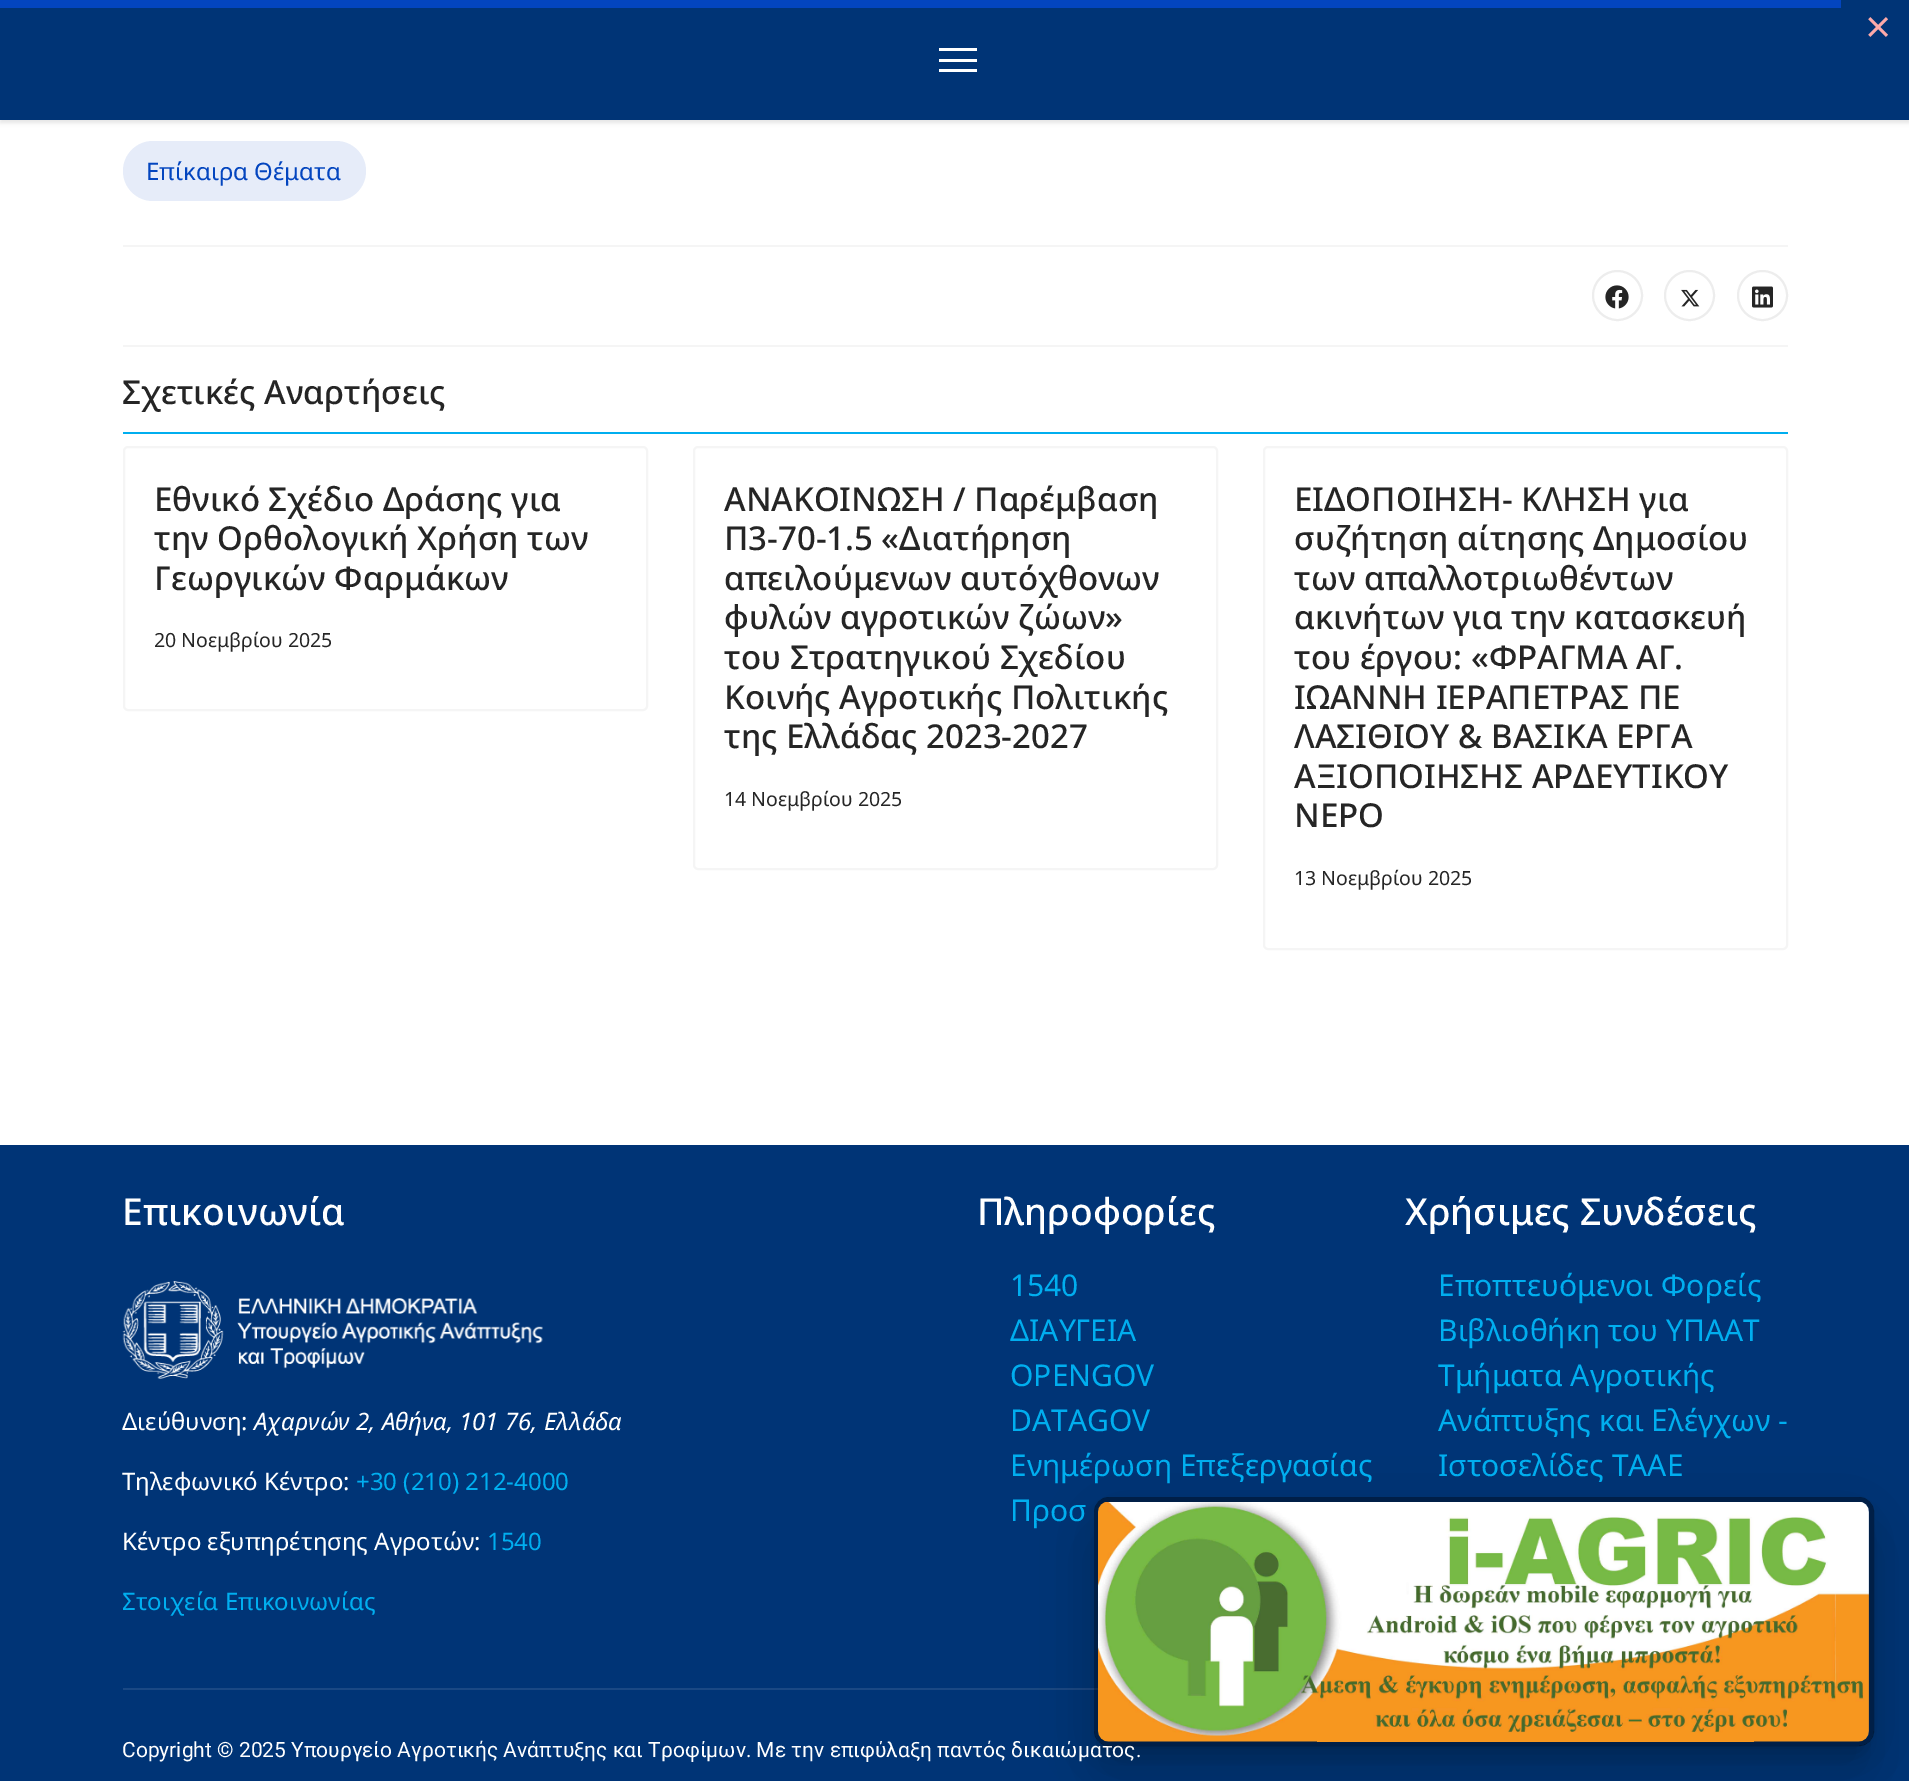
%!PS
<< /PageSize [1909 1781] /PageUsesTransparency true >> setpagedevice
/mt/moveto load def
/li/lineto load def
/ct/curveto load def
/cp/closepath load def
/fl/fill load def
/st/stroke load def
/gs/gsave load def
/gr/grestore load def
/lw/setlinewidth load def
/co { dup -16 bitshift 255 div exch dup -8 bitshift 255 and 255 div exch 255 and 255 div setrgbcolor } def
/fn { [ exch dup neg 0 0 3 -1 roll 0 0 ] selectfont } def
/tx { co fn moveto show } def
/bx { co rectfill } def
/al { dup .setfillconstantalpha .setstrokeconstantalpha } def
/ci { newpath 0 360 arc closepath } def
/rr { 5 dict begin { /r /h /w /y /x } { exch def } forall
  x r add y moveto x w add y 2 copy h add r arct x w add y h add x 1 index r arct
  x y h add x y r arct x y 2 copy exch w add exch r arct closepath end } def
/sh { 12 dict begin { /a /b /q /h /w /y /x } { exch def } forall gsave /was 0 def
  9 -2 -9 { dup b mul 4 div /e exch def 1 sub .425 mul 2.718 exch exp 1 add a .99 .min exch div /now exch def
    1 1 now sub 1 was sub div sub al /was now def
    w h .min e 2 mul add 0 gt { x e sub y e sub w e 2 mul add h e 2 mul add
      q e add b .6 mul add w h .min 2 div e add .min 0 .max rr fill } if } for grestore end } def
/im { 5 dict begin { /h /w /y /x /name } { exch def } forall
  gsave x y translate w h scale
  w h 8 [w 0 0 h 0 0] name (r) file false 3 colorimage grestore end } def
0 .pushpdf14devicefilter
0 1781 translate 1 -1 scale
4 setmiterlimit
0 0 1909 1781 16#FFFFFF bx
16#000000 co
0 3 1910 120 0 2 .1 sh
0 0 1909 120 16#003476 bx
0 0 1841 8 16#0345BF bx
0 1145 1909 636 16#003476 bx
123 1688 975 2 16#1A4884 bx
gs
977 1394 mt 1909 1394 li 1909 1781 li 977 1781 li cp 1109 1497 mt 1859 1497 li 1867.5 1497 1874 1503.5 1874 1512 ct 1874 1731 li 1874 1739.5 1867.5 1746 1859 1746 ct 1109 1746 li 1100.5 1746 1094 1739.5 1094 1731 ct 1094 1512 li 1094 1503.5 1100.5 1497 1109 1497 ct cp eoclip newpath
16#000000 co
1082 1499 804 273 27 34.5 .1 sh
gr
gs
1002 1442 mt 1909 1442 li 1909 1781 li 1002 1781 li cp 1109 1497 mt 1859 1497 li 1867.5 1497 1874 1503.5 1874 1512 ct 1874 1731 li 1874 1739.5 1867.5 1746 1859 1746 ct 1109 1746 li 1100.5 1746 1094 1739.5 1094 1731 ct 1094 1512 li 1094 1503.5 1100.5 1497 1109 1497 ct cp eoclip newpath
16#000000 co
1089 1529 789 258 20 28.5 .1 sh
gr
gs
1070 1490 mt 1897 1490 li 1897 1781 li 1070 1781 li cp 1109 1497 mt 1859 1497 li 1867.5 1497 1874 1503.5 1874 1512 ct 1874 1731 li 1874 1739.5 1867.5 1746 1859 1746 ct 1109 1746 li 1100.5 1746 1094 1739.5 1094 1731 ct 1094 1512 li 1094 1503.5 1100.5 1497 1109 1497 ct cp eoclip newpath
16#000000 co
1104 1524 759 228 5 11 .2 sh
gr
939 48 38 3 16#FFFFFF bx
939 59 38 3 16#FFFFFF bx
939 69 38 3 16#FFFFFF bx
16#E6ECF9 co
123 141 243 60 30 rr fl
123 245 1665 2 16#F5F5F5 bx
123 345 1665 2 16#F5F5F5 bx
16#EDEDED co
2 lw
1617.5 295.5 24.5 ci st
(media/2.raw) 1605 285 24 24 im
1689.5 295.5 24.5 ci st
(media/3.raw) 1681 289 19 18 im
1762.5 295.5 24.5 ci st
(media/4.raw) 1752 286 21 22 im
123 432 1665 2 16#00AEEF bx
16#F5F5F5 co
124 447 523 263 4 rr st
694 447 523 422 4 rr st
1264 447 523 502 4 rr st
(media/5.raw) 122 1281 421 98 im
(×) 1865 42 /LiberationSans-Regular 45 16#FCA9A9 tx
(Επίκαιρα Θέματα) 146 180 /NotoSans-Regular 24 16#0345BF tx
(Σχετικές Αναρτήσεις) 122 404 /NotoSans-Medium 33 16#252525 tx
(Εθνικό Σχέδιο Δράσης για) 154 511 /NotoSans-Medium 33 16#252525 tx
(την Ορθολογική Χρήση των) 154 550 /NotoSans-Medium 33 16#252525 tx
(Γεωργικών Φαρμάκων) 154 590 /NotoSans-Medium 33 16#252525 tx
(20 Νοεμβρίου 2025) 154 647 /NotoSans-Regular 19.5 16#252525 tx
(ΑΝΑΚΟΙΝΩΣΗ / Παρέμβαση) 724 511 /NotoSans-Medium 33 16#252525 tx
(Π3-70-1.5 «Διατήρηση) 724 550 /NotoSans-Medium 33 16#252525 tx
(απειλούμενων αυτόχθονων) 724 590 /NotoSans-Medium 33 16#252525 tx
(φυλών αγροτικών ζώων») 724 629 /NotoSans-Medium 33 16#252525 tx
(του Στρατηγικού Σχεδίου) 724 669 /NotoSans-Medium 33 16#252525 tx
(Κοινής Αγροτικής Πολιτικής) 724 709 /NotoSans-Medium 33 16#252525 tx
(της Ελλάδας 2023-2027) 724 748 /NotoSans-Medium 33 16#252525 tx
(14 Νοεμβρίου 2025) 724 806 /NotoSans-Regular 19.5 16#252525 tx
(ΕΙΔΟΠΟΙΗΣΗ- ΚΛΗΣΗ για) 1294 511 /NotoSans-Medium 33 16#252525 tx
(συζήτηση αίτησης Δημοσίου) 1294 550 /NotoSans-Medium 33 16#252525 tx
(των απαλλοτριωθέντων) 1294 590 /NotoSans-Medium 33 16#252525 tx
(ακινήτων για την κατασκευή) 1294 629 /NotoSans-Medium 33 16#252525 tx
(του έργου: «ΦΡΑΓΜΑ ΑΓ.) 1294 669 /NotoSans-Medium 33 16#252525 tx
(ΙΩΑΝΝΗ ΙΕΡΑΠΕΤΡΑΣ ΠΕ) 1294 709 /NotoSans-Medium 33 16#252525 tx
(ΛΑΣΙΘΙΟΥ & ΒΑΣΙΚΑ ΕΡΓΑ) 1294 748 /NotoSans-Medium 33 16#252525 tx
(ΑΞΙΟΠΟΙΗΣΗΣ ΑΡΔΕΥΤΙΚΟΥ) 1294 788 /NotoSans-Medium 33 16#252525 tx
(ΝΕΡΟ) 1294 827 /NotoSans-Medium 33 16#252525 tx
(13 Νοεμβρίου 2025) 1294 885 /NotoSans-Regular 19.5 16#252525 tx
(Επικοινωνία) 122 1225 /NotoSans-Medium 37.25 16#FFFFFF tx
(Διεύθυνση:) 122 1430 /NotoSans-Regular 24 16#FFFFFF tx
(Αχαρνών 2, Αθήνα, 101 76, Ελλάδα) 254 1430 /NotoSans-Italic 24 16#FFFFFF tx
(Τηλεφωνικό Κέντρο:) 122 1490 /NotoSans-Regular 24 16#FFFFFF tx
(+30 \(210\) 212-4000) 356 1490 /NotoSans-Regular 24 16#00AEEF tx
(Κέντρο εξυπηρέτησης Αγροτών:) 122 1550 /NotoSans-Regular 24 16#FFFFFF tx
(1540) 487 1550 /NotoSans-Regular 24 16#00AEEF tx
(Στοιχεία Επικοινωνίας) 122 1610 /NotoSans-Regular 24 16#00AEEF tx
(Πληροφορίες) 977 1225 /NotoSans-Medium 37.25 16#FFFFFF tx
(1540) 1010 1296 /NotoSans-Regular 30 16#00AEEF tx
(ΔΙΑΥΓΕΙΑ) 1010 1341 /NotoSans-Regular 30 16#00AEEF tx
(OPENGOV) 1010 1386 /NotoSans-Regular 30 16#00AEEF tx
(DATAGOV) 1010 1431 /NotoSans-Regular 30 16#00AEEF tx
(Ενημέρωση Επεξεργασίας) 1010 1476 /NotoSans-Regular 30 16#00AEEF tx
(Προσ) 1010 1521 /NotoSans-Regular 30 16#00AEEF tx
(Χρήσιμες Συνδέσεις) 1405 1225 /NotoSans-Medium 37.25 16#FFFFFF tx
(Εποπτευόμενοι Φορείς) 1438 1296 /NotoSans-Regular 30 16#00AEEF tx
(Βιβλιοθήκη του ΥΠΑΑΤ) 1438 1341 /NotoSans-Regular 30 16#00AEEF tx
(Τμήματα Αγροτικής) 1438 1386 /NotoSans-Regular 30 16#00AEEF tx
(Ανάπτυξης και Ελέγχων -) 1438 1431 /NotoSans-Regular 30 16#00AEEF tx
(Ιστοσελίδες ΤΑΑΕ) 1438 1476 /NotoSans-Regular 30 16#00AEEF tx
(Copyright © 2025 Υπουργείο Αγροτικής Ανάπτυξης και Τροφίμων. Με την επιφύλαξη παντός δικαιώματος.) 122 1757 /Roboto-Regular 21 16#FFFFFF tx
0.4 al
16#000000 co
5 lw
1096.5 1499.5 775 244 12.5 rr st
1 al
(media/1.raw) 1098 1502 771 240 im
.poppdf14devicefilter showpage
